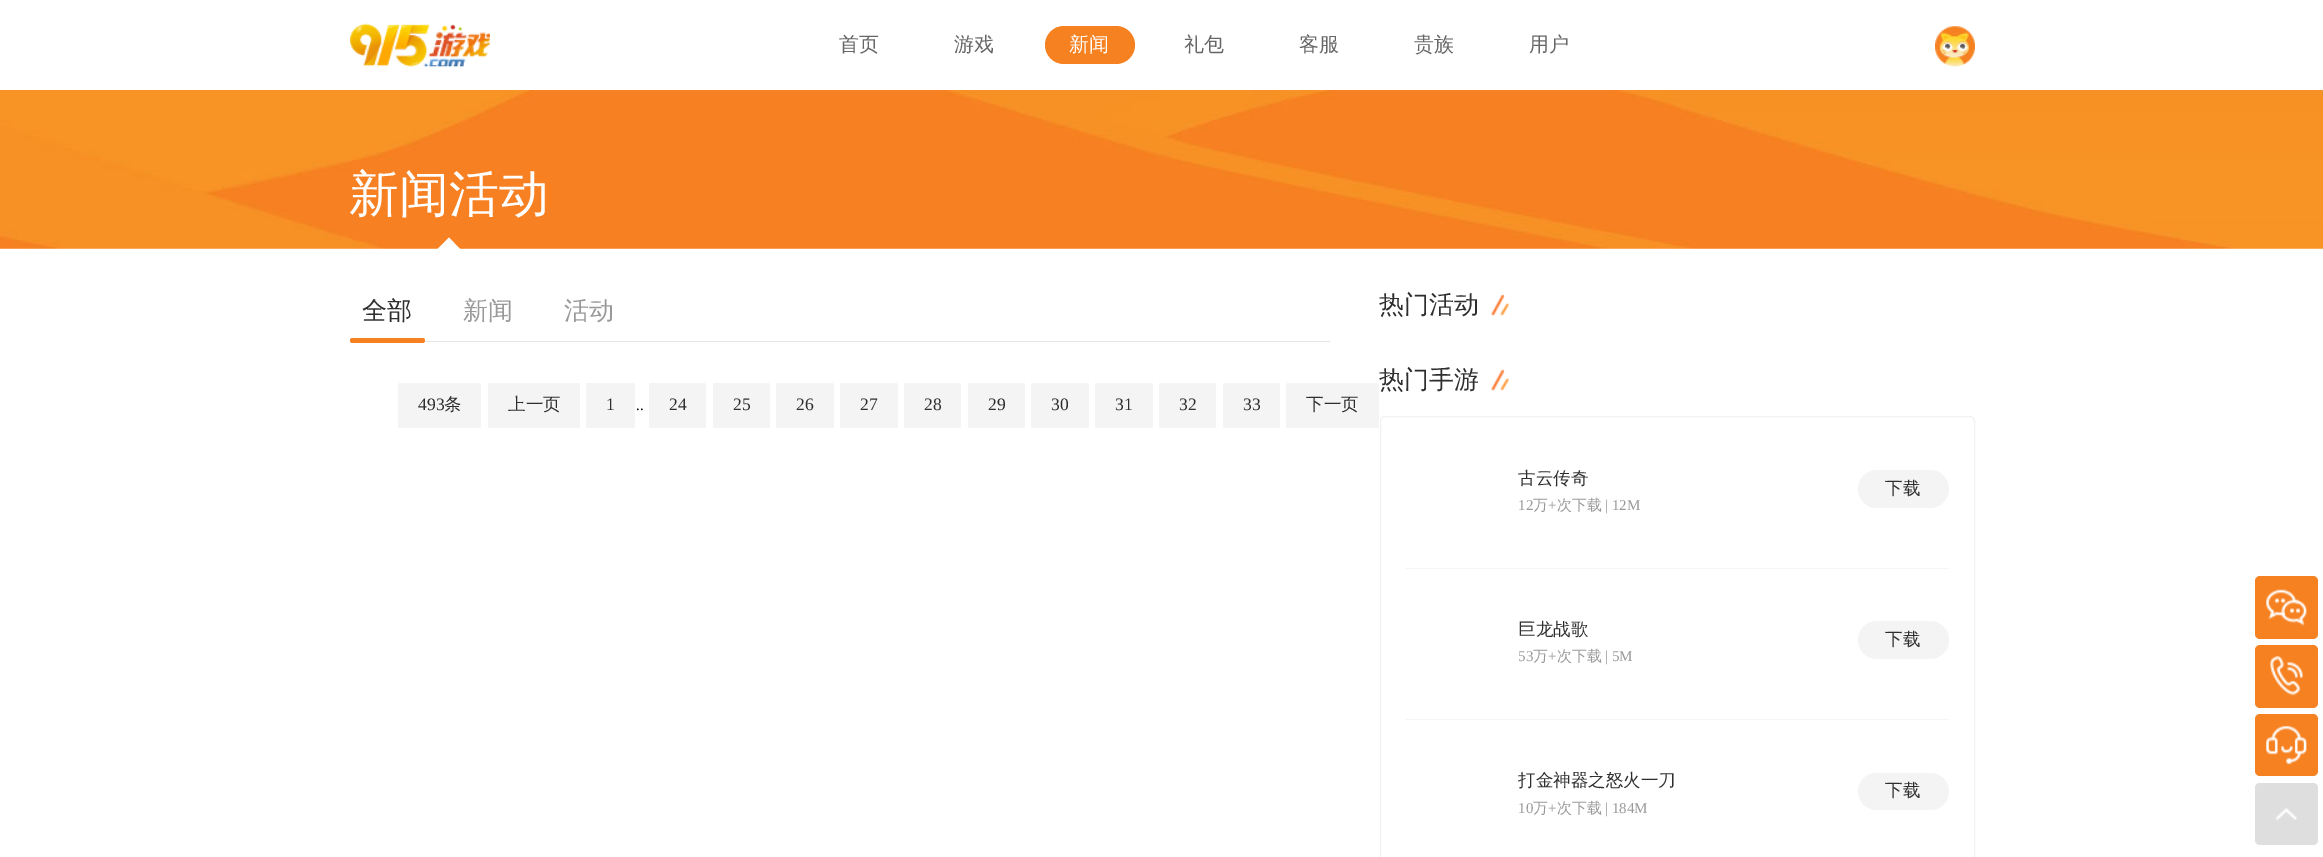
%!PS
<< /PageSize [2323 857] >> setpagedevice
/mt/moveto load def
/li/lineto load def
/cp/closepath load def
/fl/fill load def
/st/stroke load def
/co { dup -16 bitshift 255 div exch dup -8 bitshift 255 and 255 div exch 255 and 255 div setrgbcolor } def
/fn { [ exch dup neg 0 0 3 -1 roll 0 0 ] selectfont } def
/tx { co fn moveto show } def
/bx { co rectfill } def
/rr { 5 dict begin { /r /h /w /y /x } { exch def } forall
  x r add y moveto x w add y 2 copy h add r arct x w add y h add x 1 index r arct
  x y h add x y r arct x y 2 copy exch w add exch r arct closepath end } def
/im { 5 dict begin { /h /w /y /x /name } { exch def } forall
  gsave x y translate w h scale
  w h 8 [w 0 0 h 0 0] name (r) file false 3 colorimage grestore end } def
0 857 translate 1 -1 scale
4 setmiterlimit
0 0 2323 857 16#FFFFFF bx
(media/1.raw) 350 23 140 44 im
16#F68121 co
1045 26 90 38 19 rr fl
(media/2.raw) 1935 26 40 41 im
(media/3.raw) 0 90 2323 159 im
16#FFFFFF co
460 249 mt 437.5 249 li 449 237.5 li cp fl
350 341 980 1 16#E5E5E5 bx
16#F68121 co
350 338 75 5 2.5 rr fl
16#F4F4F4 co
398 383 83 45 2 rr fl
488 383 92 45 2 rr fl
586 383 49 45 2 rr fl
649 383 57 45 2 rr fl
713 383 57 45 2 rr fl
776 383 58 45 2 rr fl
840 383 58 45 2 rr fl
904 383 57 45 2 rr fl
968 383 57 45 2 rr fl
1031 383 58 45 2 rr fl
1095 383 58 45 2 rr fl
1159 383 57 45 2 rr fl
1223 383 57 45 2 rr fl
1286 383 93 45 2 rr fl
(media/4.raw) 1491 294 18 22 im
(media/5.raw) 1491 369 18 22 im
16#F2F2F2 co
1380.5 416.5 594 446 4.5 rr st
1406 568 543 1 16#F5F5F5 bx
16#F4F4F4 co
1858 470 91 38 19 rr fl
1406 719 543 1 16#F5F5F5 bx
16#F4F4F4 co
1858 621 91 38 19 rr fl
1858 773 91 37 18.5 rr fl
16#F68121 co
2255 576 63 63 5 rr fl
(media/6.raw) 2266 589 41 37 im
2255 645 63 63 5 rr fl
(media/7.raw) 2269 655 34 41 im
2255 714 63 62 5 rr fl
(media/8.raw) 2266 725 41 40 im
16#DEDEDE co
2255 783 63 62 5 rr fl
(media/9.raw) 2275 808 22 12 im
(首页) 839 51 /WenQuanYiZenHei-Medium 20 16#666666 tx
(游戏) 954 51 /WenQuanYiZenHei-Medium 20 16#666666 tx
(新闻) 1069 51 /WenQuanYiZenHei-Medium 20 16#FFFFFF tx
(礼包) 1184 51 /WenQuanYiZenHei-Medium 20 16#666666 tx
(客服) 1299 51 /WenQuanYiZenHei-Medium 20 16#666666 tx
(贵族) 1414 51 /WenQuanYiZenHei-Medium 20 16#666666 tx
(用户) 1529 51 /WenQuanYiZenHei-Medium 20 16#666666 tx
(新闻活动) 349 211 /WenQuanYiZenHei-Medium 50 16#FFFFFF tx
(全部) 362 319 /WenQuanYiZenHei-Medium 25 16#2E2E2E tx
(新闻) 463 319 /WenQuanYiZenHei-Medium 25 16#999999 tx
(活动) 564 319 /WenQuanYiZenHei-Medium 25 16#999999 tx
(493) 418 410 /LiberationSerif-Regular 17.5 16#2E2E2E tx
(条) 444 410 /WenQuanYiZenHei-Medium 17.5 16#2E2E2E tx
(上一页) 508 410 /WenQuanYiZenHei-Medium 17.5 16#2E2E2E tx
(1) 606 410 /LiberationSerif-Regular 17.5 16#2E2E2E tx
(..) 636 410 /LiberationSerif-Regular 15 16#000000 tx
(24) 669 410 /LiberationSerif-Regular 17.5 16#2E2E2E tx
(25) 733 410 /LiberationSerif-Regular 17.5 16#2E2E2E tx
(26) 796 410 /LiberationSerif-Regular 17.5 16#2E2E2E tx
(27) 860 410 /LiberationSerif-Regular 17.5 16#2E2E2E tx
(28) 924 410 /LiberationSerif-Regular 17.5 16#2E2E2E tx
(29) 988 410 /LiberationSerif-Regular 17.5 16#2E2E2E tx
(30) 1051 410 /LiberationSerif-Regular 17.5 16#2E2E2E tx
(31) 1115 410 /LiberationSerif-Regular 17.5 16#2E2E2E tx
(32) 1179 410 /LiberationSerif-Regular 17.5 16#2E2E2E tx
(33) 1243 410 /LiberationSerif-Regular 17.5 16#2E2E2E tx
(下一页) 1306 410 /WenQuanYiZenHei-Medium 17.5 16#2E2E2E tx
(热门活动) 1379 313 /WenQuanYiZenHei-Medium 25 16#2E2E2E tx
(热门手游) 1379 388 /WenQuanYiZenHei-Medium 25 16#2E2E2E tx
(古云传奇) 1518 484 /WenQuanYiZenHei-Medium 17.5 16#2E2E2E tx
(12) 1518 510 /LiberationSerif-Regular 15 16#999999 tx
(万) 1533 510 /WenQuanYiZenHei-Medium 15 16#999999 tx
(+) 1548 510 /LiberationSerif-Regular 15 16#999999 tx
(次下载) 1557 510 /WenQuanYiZenHei-Medium 15 16#999999 tx
(| 12M) 1605 510 /LiberationSerif-Regular 15 16#999999 tx
(下载) 1885 494 /WenQuanYiZenHei-Medium 17.5 16#2E2E2E tx
(巨龙战歌) 1518 635 /WenQuanYiZenHei-Medium 17.5 16#2E2E2E tx
(53) 1518 661 /LiberationSerif-Regular 15 16#999999 tx
(万) 1533 661 /WenQuanYiZenHei-Medium 15 16#999999 tx
(+) 1548 661 /LiberationSerif-Regular 15 16#999999 tx
(次下载) 1557 661 /WenQuanYiZenHei-Medium 15 16#999999 tx
(| 5M) 1605 661 /LiberationSerif-Regular 15 16#999999 tx
(下载) 1885 645 /WenQuanYiZenHei-Medium 17.5 16#2E2E2E tx
(打金神器之怒火一刀) 1518 786 /WenQuanYiZenHei-Medium 17.5 16#2E2E2E tx
(10) 1518 813 /LiberationSerif-Regular 15 16#999999 tx
(万) 1533 813 /WenQuanYiZenHei-Medium 15 16#999999 tx
(+) 1548 813 /LiberationSerif-Regular 15 16#999999 tx
(次下载) 1557 813 /WenQuanYiZenHei-Medium 15 16#999999 tx
(| 184M) 1605 813 /LiberationSerif-Regular 15 16#999999 tx
(下载) 1885 796 /WenQuanYiZenHei-Medium 17.5 16#2E2E2E tx
showpage
